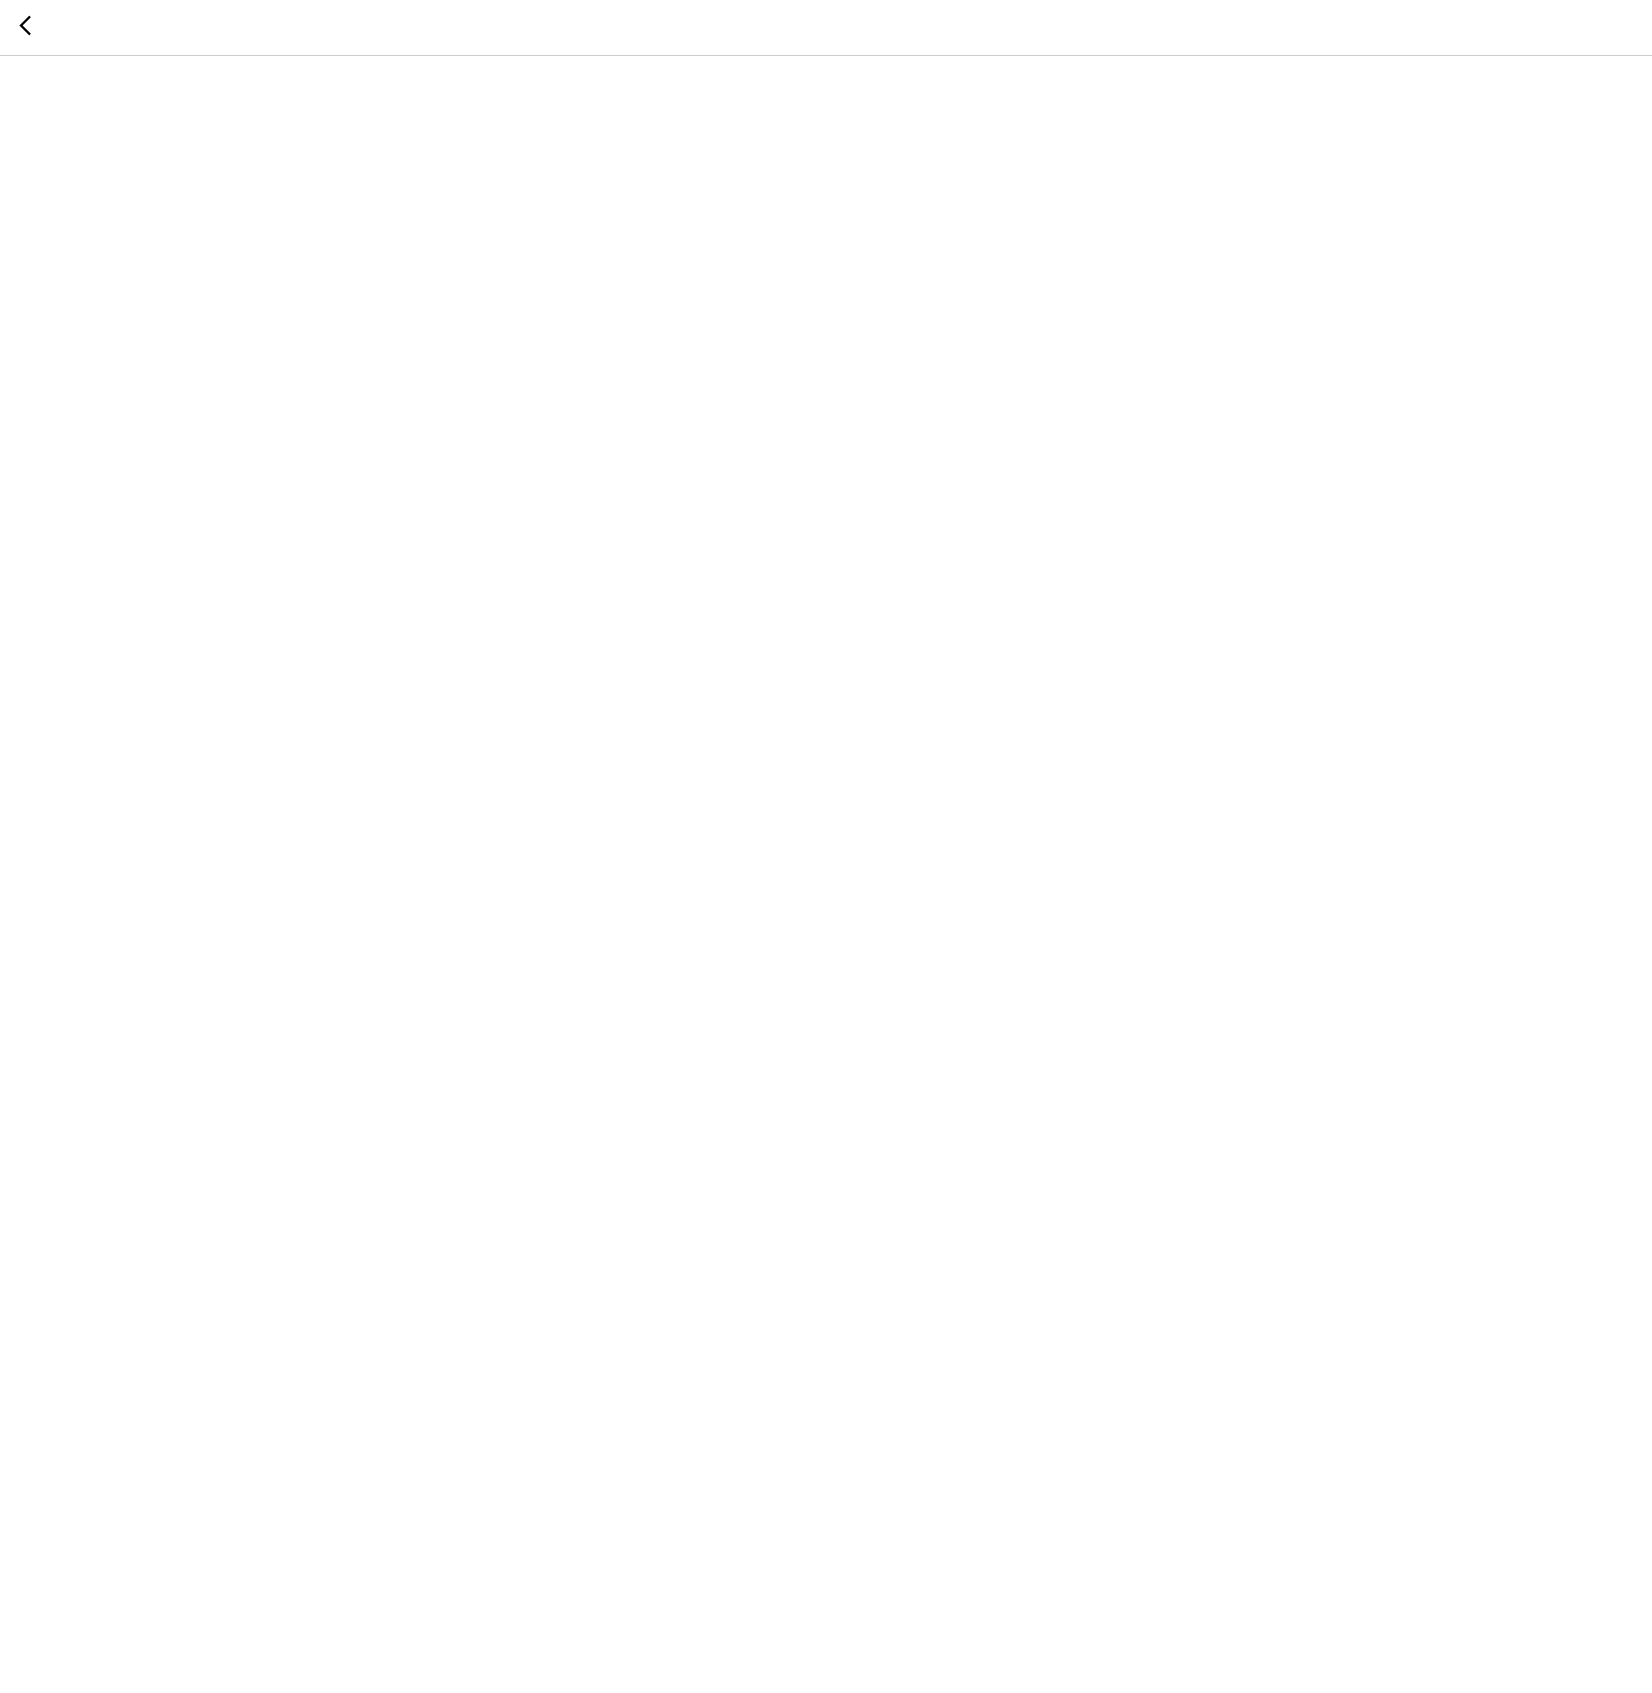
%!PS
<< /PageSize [1652 1693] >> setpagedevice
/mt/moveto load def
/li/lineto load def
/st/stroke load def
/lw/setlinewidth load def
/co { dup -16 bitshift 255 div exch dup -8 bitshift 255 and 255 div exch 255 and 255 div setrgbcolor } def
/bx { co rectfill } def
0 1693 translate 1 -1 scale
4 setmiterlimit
0 0 1652 1693 16#FFFFFF bx
0 55 1652 1 16#CCCCCC bx
16#000000 co
2 lw
30 34.5 mt 21 25.5 li 30 16.5 li st
showpage
